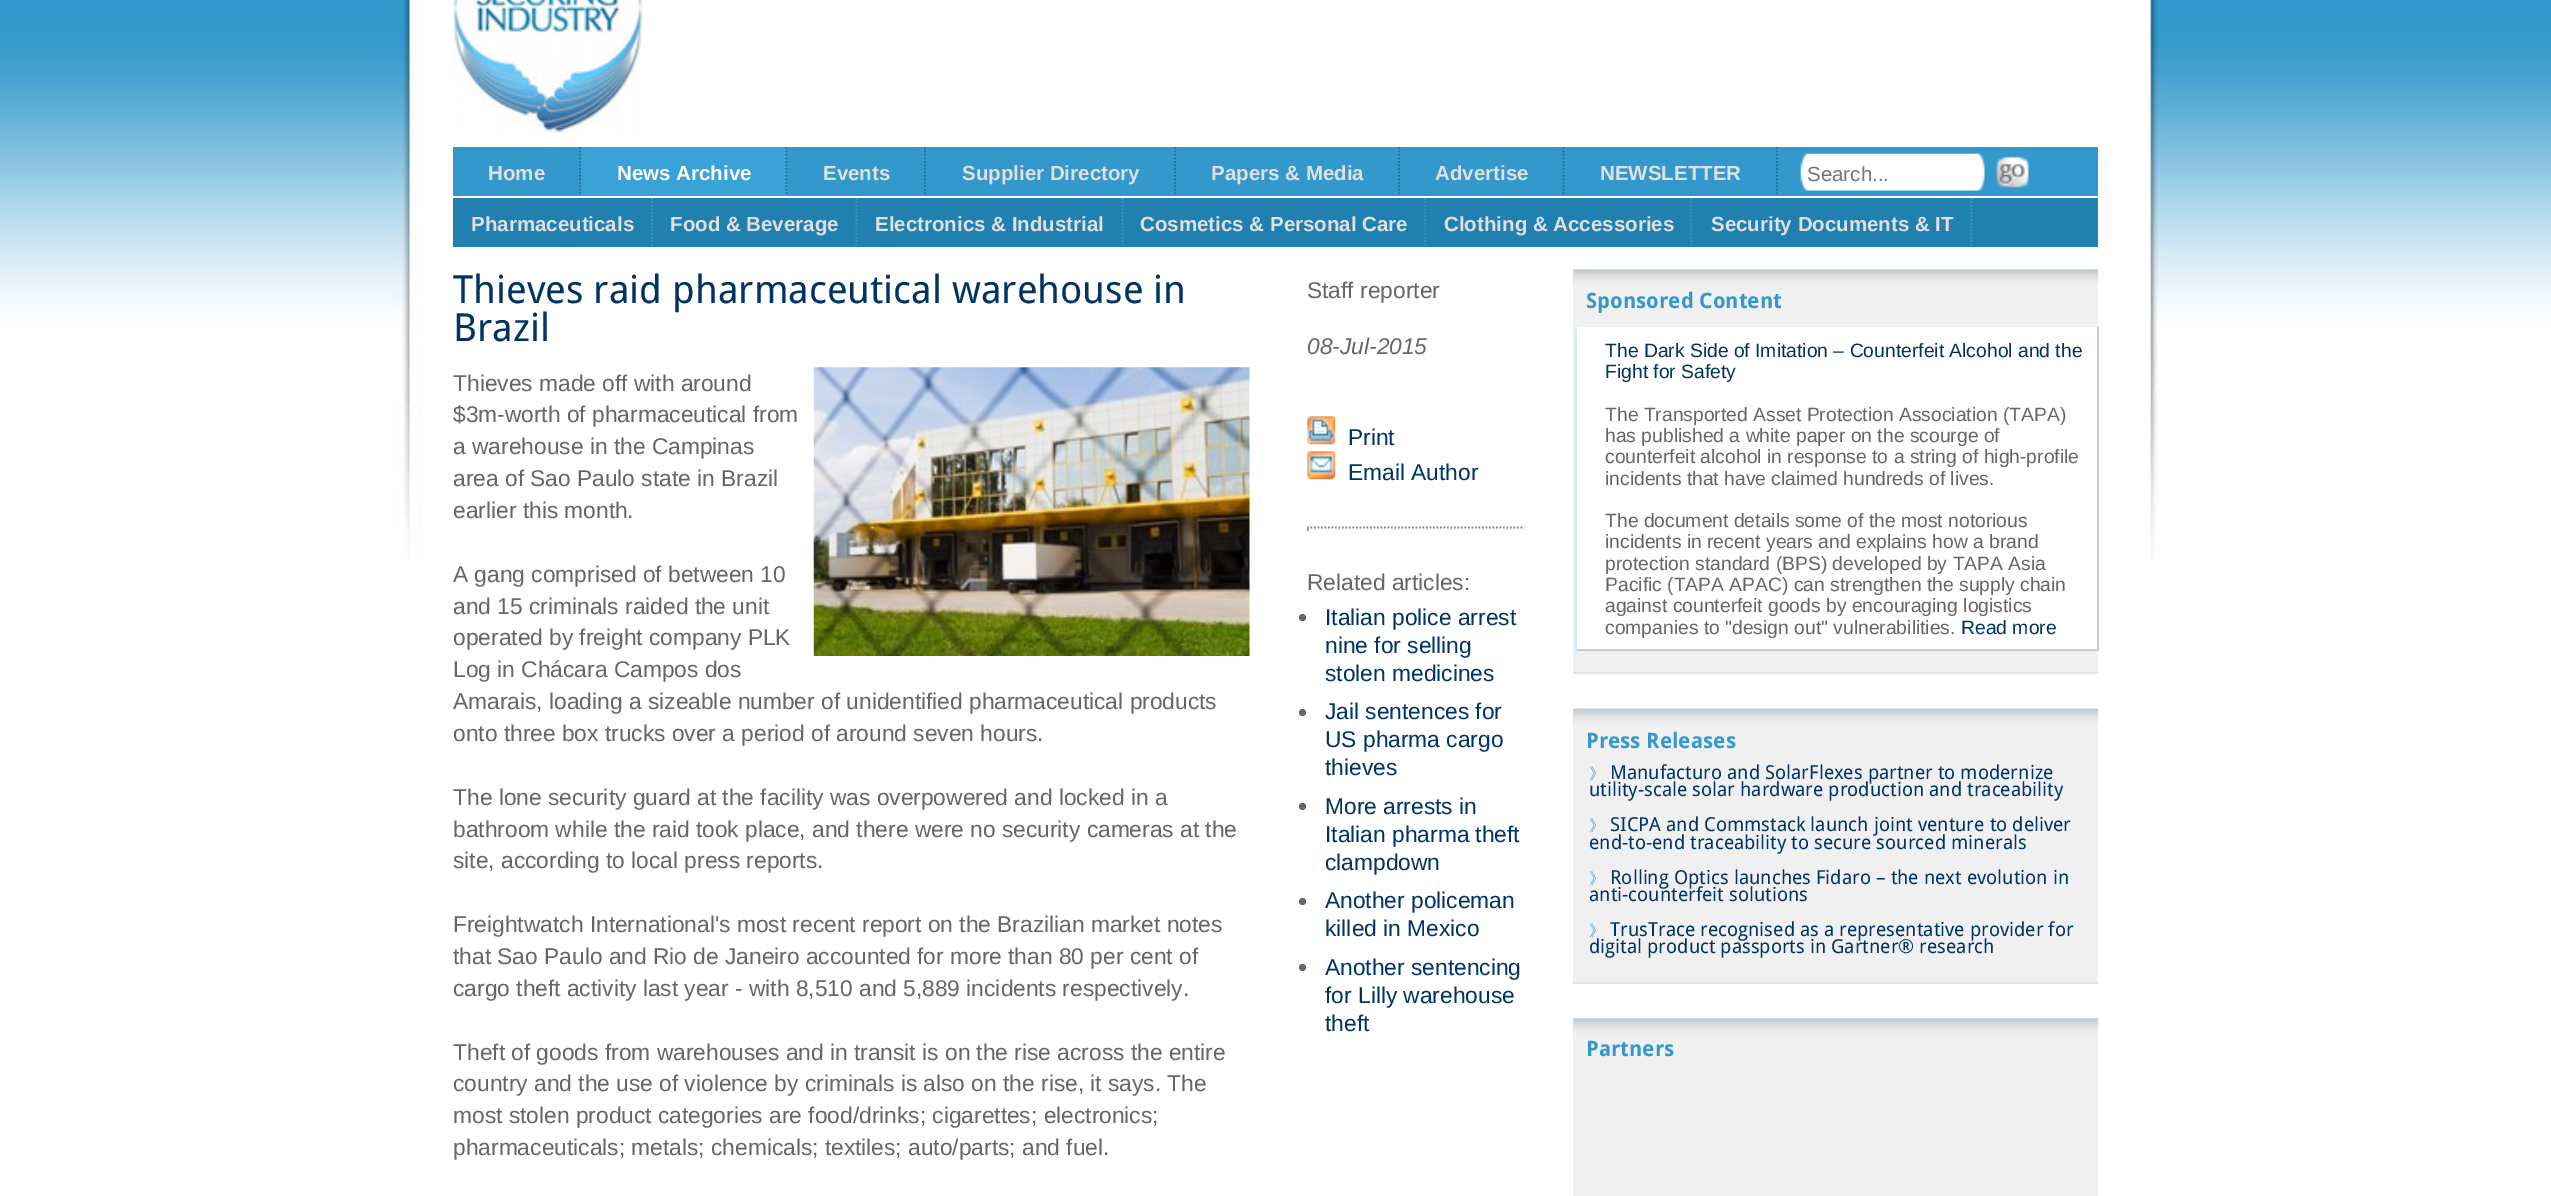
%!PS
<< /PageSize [2551 1196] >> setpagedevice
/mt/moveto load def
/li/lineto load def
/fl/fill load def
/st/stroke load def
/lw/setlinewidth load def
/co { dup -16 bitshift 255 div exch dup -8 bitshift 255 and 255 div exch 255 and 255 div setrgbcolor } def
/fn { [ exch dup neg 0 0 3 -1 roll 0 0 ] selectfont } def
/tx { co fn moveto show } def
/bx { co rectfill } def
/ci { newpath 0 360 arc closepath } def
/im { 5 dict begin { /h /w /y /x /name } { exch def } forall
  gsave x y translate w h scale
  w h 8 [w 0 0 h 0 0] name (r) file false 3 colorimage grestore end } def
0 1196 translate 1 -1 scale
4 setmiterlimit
0 0 2551 1196 16#FFFFFF bx
(media/1.raw) 0 0 2551 559 im
(media/2.raw) 453 0 190 133 im
453 147 1645 49 16#3399CC bx
16#24739B co
1.8 lw
[1.75 1.75] 0 setdash
580 147 mt 580 196 li st
581 147 207 49 16#3AA2D7 bx
16#24739B co
786.5 147 mt 786.5 196 li st
925 147 mt 925 196 li st
1175 147 mt 1175 196 li st
1399 147 mt 1399 196 li st
1563.5 147 mt 1563.5 196 li st
1777 147 mt 1777 196 li st
(media/3.raw) 1800 153 185 38 im
(media/4.raw) 1996 156 33 32 im
453 198 1645 49 16#2080B0 bx
16#3399CC co
652 198 mt 652 247 li st
856.5 198 mt 856.5 247 li st
1122.5 198 mt 1122.5 247 li st
1425.5 198 mt 1425.5 247 li st
1426 198 1 48 16#2080B0 bx
16#3399CC co
1691.5 198 mt 1691.5 247 li st
1692 198 1 48 16#2080B0 bx
16#3399CC co
1971.5 198 mt 1971.5 247 li st
(media/5.raw) 813 367 437 289 im
(media/6.raw) 1307 416 29 29 im
(media/7.raw) 1307 451 29 29 im
16#808080 co
1307 527.5 mt 1524 527.5 li st
1523 527 2 4 16#EEEEEE bx
1307 527 2 4 16#9F9F9F bx
16#666666 co
1302.5 617.5 3.5 ci fl
1302.5 712.5 3.5 ci fl
1302.5 806.5 3.5 ci fl
1302.5 901.5 3.5 ci fl
1302.5 967.5 3.5 ci fl
1573 270 525 402 16#F0F0F0 bx
(media/8.raw) 1573 269 526 35 im
1573 672 525 2 16#E0E0EF bx
1577 327 520 322 16#FFFFFF bx
2097 327 2 324 16#CCCCCC bx
1575 649 523 2 16#CCCCCC bx
1575 327 2 324 16#CFECFA bx
1573 709 525 273 16#F0F0F0 bx
(media/9.raw) 1573 708 526 35 im
1573 982 525 2 16#E0E0EF bx
1573 1019 525 177 16#F0F0F0 bx
(media/8.raw) 1573 1018 526 35 im
(Home) 488 180 /LiberationSans-Bold 20.5 16#E0E0E0 tx
(News Archive) 617 180 /LiberationSans-Bold 20.5 16#FFFFFF tx
(Events) 823 180 /LiberationSans-Bold 20.5 16#E0E0E0 tx
(Supplier Directory) 962 180 /LiberationSans-Bold 20.5 16#E0E0E0 tx
(Papers & Media) 1211 180 /LiberationSans-Bold 20.5 16#E0E0E0 tx
(Advertise) 1435 180 /LiberationSans-Bold 20.5 16#E0E0E0 tx
(NEWSLETTER) 1600 180 /LiberationSans-Bold 20.5 16#E0E0E0 tx
(Search...) 1807 181 /LiberationSans-Regular 20.5 16#757575 tx
(Pharmaceuticals) 471 231 /LiberationSans-Bold 20.5 16#E0E0E0 tx
(Food & Beverage) 670 231 /LiberationSans-Bold 20.5 16#E0E0E0 tx
(Electronics & Industrial) 875 231 /LiberationSans-Bold 20.5 16#E0E0E0 tx
(Cosmetics & Personal Care) 1140 231 /LiberationSans-Bold 20.5 16#E0E0E0 tx
(Clothing & Accessories) 1444 231 /LiberationSans-Bold 20.5 16#E0E0E0 tx
(Security Documents & IT) 1711 231 /LiberationSans-Bold 20.5 16#E0E0E0 tx
(Thieves raid pharmaceutical warehouse in) 453 303 /DroidSans-Regular 38.7 16#003366 tx
(Brazil) 453 341 /DroidSans-Regular 38.7 16#003366 tx
(Thieves made off with around) 453 391 /LiberationSans-Regular 22.75 16#666666 tx
($3m-worth of pharmaceutical from) 453 422 /LiberationSans-Regular 22.75 16#666666 tx
(a warehouse in the Campinas) 453 454 /LiberationSans-Regular 22.75 16#666666 tx
(area of Sao Paulo state in Brazil) 453 486 /LiberationSans-Regular 22.75 16#666666 tx
(earlier this month.) 453 518 /LiberationSans-Regular 22.75 16#666666 tx
(A gang comprised of between 10) 453 582 /LiberationSans-Regular 22.75 16#666666 tx
(and 15 criminals raided the unit) 453 614 /LiberationSans-Regular 22.75 16#666666 tx
(operated by freight company PLK) 453 645 /LiberationSans-Regular 22.75 16#666666 tx
(Log in Chácara Campos dos) 453 677 /LiberationSans-Regular 22.75 16#666666 tx
(Amarais, loading a sizeable number of unidentified pharmaceutical products) 453 709 /LiberationSans-Regular 22.75 16#666666 tx
(onto three box trucks over a period of around seven hours.) 453 741 /LiberationSans-Regular 22.75 16#666666 tx
(The lone security guard at the facility was overpowered and locked in a) 453 805 /LiberationSans-Regular 22.75 16#666666 tx
(bathroom while the raid took place, and there were no security cameras at the) 453 837 /LiberationSans-Regular 22.75 16#666666 tx
(site, according to local press reports.) 453 868 /LiberationSans-Regular 22.75 16#666666 tx
(Freightwatch International's most recent report on the Brazilian market notes) 453 932 /LiberationSans-Regular 22.75 16#666666 tx
(that Sao Paulo and Rio de Janeiro accounted for more than 80 per cent of) 453 964 /LiberationSans-Regular 22.75 16#666666 tx
(cargo theft activity last year - with 8,510 and 5,889 incidents respectively.) 453 996 /LiberationSans-Regular 22.75 16#666666 tx
(Theft of goods from warehouses and in transit is on the rise across the entire) 453 1060 /LiberationSans-Regular 22.75 16#666666 tx
(country and the use of violence by criminals is also on the rise, it says. The) 453 1091 /LiberationSans-Regular 22.75 16#666666 tx
(most stolen product categories are food/drinks; cigarettes; electronics;) 453 1123 /LiberationSans-Regular 22.75 16#666666 tx
(pharmaceuticals; metals; chemicals; textiles; auto/parts; and fuel.) 453 1155 /LiberationSans-Regular 22.75 16#666666 tx
(Staff reporter) 1307 298 /LiberationSans-Regular 22.75 16#666666 tx
(08-Jul-2015) 1307 354 /LiberationSans-Italic 22.75 16#666666 tx
(Print) 1348 445 /LiberationSans-Regular 22.75 16#003366 tx
(Email Author) 1348 480 /LiberationSans-Regular 22.75 16#003366 tx
(Related articles:) 1307 590 /LiberationSans-Regular 22.75 16#666666 tx
(Italian police arrest) 1325 625 /LiberationSans-Regular 22.75 16#003366 tx
(nine for selling) 1325 653 /LiberationSans-Regular 22.75 16#003366 tx
(stolen medicines) 1325 681 /LiberationSans-Regular 22.75 16#003366 tx
(Jail sentences for) 1325 719 /LiberationSans-Regular 22.75 16#003366 tx
(US pharma cargo) 1325 747 /LiberationSans-Regular 22.75 16#003366 tx
(thieves) 1325 775 /LiberationSans-Regular 22.75 16#003366 tx
(More arrests in) 1325 814 /LiberationSans-Regular 22.75 16#003366 tx
(Italian pharma theft) 1325 842 /LiberationSans-Regular 22.75 16#003366 tx
(clampdown) 1325 870 /LiberationSans-Regular 22.75 16#003366 tx
(Another policeman) 1325 908 /LiberationSans-Regular 22.75 16#003366 tx
(killed in Mexico) 1325 936 /LiberationSans-Regular 22.75 16#003366 tx
(Another sentencing) 1325 975 /LiberationSans-Regular 22.75 16#003366 tx
(for Lilly warehouse) 1325 1003 /LiberationSans-Regular 22.75 16#003366 tx
(theft) 1325 1031 /LiberationSans-Regular 22.75 16#003366 tx
(Sponsored Content) 1586 308 /DroidSans-Bold 21.25 16#3399CC tx
(The Dark Side of Imitation – Counterfeit Alcohol and the) 1605 357 /LiberationSans-Regular 19.3 16#003366 tx
(Fight for Safety) 1605 378 /LiberationSans-Regular 19.3 16#003366 tx
(The Transported Asset Protection Association \(TAPA\)) 1605 421 /LiberationSans-Regular 19.3 16#666666 tx
(has published a white paper on the scourge of) 1605 442 /LiberationSans-Regular 19.3 16#666666 tx
(counterfeit alcohol in response to a string of high-profile) 1605 463 /LiberationSans-Regular 19.3 16#666666 tx
(incidents that have claimed hundreds of lives.) 1605 485 /LiberationSans-Regular 19.3 16#666666 tx
(The document details some of the most notorious) 1605 527 /LiberationSans-Regular 19.3 16#666666 tx
(incidents in recent years and explains how a brand) 1605 548 /LiberationSans-Regular 19.3 16#666666 tx
(protection standard \(BPS\) developed by TAPA Asia) 1605 570 /LiberationSans-Regular 19.3 16#666666 tx
(Pacific \(TAPA APAC\) can strengthen the supply chain) 1605 591 /LiberationSans-Regular 19.3 16#666666 tx
(against counterfeit goods by encouraging logistics) 1605 612 /LiberationSans-Regular 19.3 16#666666 tx
(companies to "design out" vulnerabilities.) 1605 634 /LiberationSans-Regular 19.3 16#666666 tx
(Read more) 1961 634 /LiberationSans-Regular 19.3 16#003366 tx
(Press Releases) 1586 748 /DroidSans-Bold 21.25 16#3399CC tx
(》) 1589 779 /WenQuanYiZenHei-Medium 16 16#3399CC tx
(Manufacturo and SolarFlexes partner to modernize) 1610 779 /DroidSans-Regular 19.3 16#003366 tx
(utility-scale solar hardware production and traceability) 1589 796 /DroidSans-Regular 19.3 16#003366 tx
(》) 1589 831 /WenQuanYiZenHei-Medium 16 16#3399CC tx
(SICPA and Commstack launch joint venture to deliver) 1610 831 /DroidSans-Regular 19.3 16#003366 tx
(end-to-end traceability to secure sourced minerals) 1589 849 /DroidSans-Regular 19.3 16#003366 tx
(》) 1589 884 /WenQuanYiZenHei-Medium 16 16#3399CC tx
(Rolling Optics launches Fidaro – the next evolution in) 1610 884 /DroidSans-Regular 19.3 16#003366 tx
(anti-counterfeit solutions) 1589 901 /DroidSans-Regular 19.3 16#003366 tx
(》) 1589 936 /WenQuanYiZenHei-Medium 16 16#3399CC tx
(TrusTrace recognised as a representative provider for) 1610 936 /DroidSans-Regular 19.3 16#003366 tx
(digital product passports in Gartner® research) 1589 953 /DroidSans-Regular 19.3 16#003366 tx
(Partners) 1586 1056 /DroidSans-Bold 21.25 16#3399CC tx
showpage
